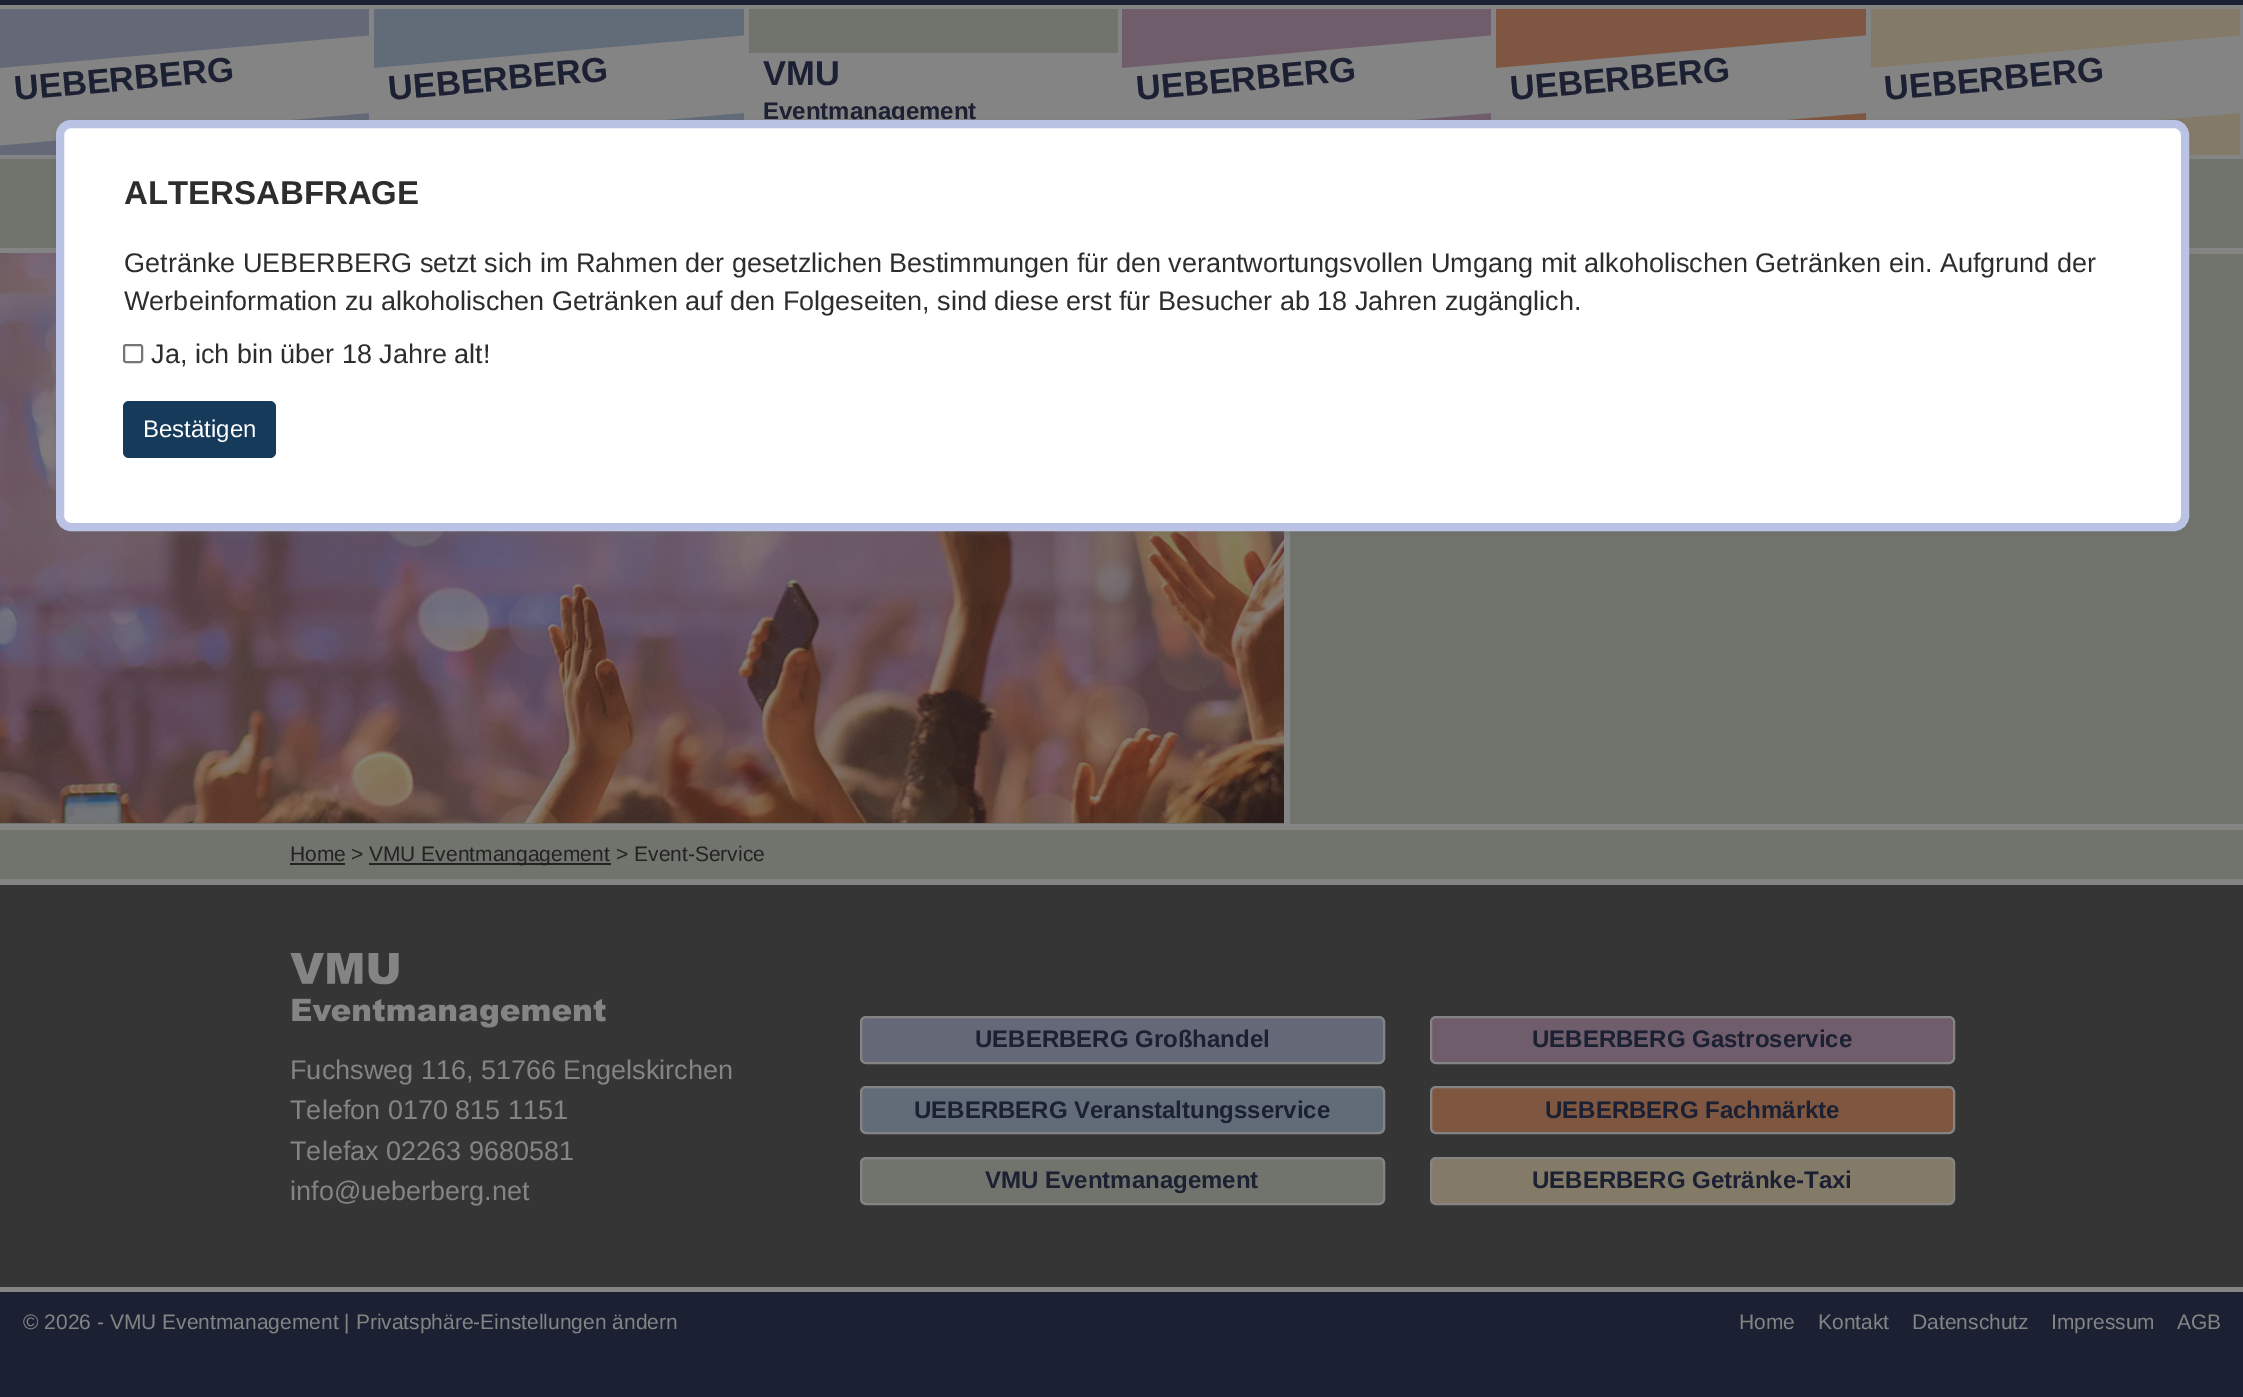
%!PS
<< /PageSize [2243 1397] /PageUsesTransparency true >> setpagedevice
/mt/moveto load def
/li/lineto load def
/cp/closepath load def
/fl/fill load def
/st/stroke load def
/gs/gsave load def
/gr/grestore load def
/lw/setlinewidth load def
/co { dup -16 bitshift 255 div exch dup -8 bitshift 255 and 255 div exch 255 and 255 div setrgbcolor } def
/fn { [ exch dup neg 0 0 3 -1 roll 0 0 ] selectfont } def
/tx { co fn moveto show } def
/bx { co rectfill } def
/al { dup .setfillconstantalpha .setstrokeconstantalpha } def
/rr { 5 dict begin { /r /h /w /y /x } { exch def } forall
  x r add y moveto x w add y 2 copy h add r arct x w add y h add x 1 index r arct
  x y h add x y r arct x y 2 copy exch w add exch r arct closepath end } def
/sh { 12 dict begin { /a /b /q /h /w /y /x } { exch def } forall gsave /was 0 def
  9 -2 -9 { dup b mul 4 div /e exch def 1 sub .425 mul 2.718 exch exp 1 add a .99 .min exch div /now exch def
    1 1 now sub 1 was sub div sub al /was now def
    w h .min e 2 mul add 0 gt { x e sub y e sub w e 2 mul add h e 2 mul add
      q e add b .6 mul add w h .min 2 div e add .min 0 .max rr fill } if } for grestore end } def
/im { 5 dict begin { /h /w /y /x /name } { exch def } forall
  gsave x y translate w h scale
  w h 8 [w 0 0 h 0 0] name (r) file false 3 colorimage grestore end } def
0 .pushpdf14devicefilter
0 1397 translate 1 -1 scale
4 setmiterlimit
0 0 2243 1397 16#1B2032 bx
0 5 2243 4 16#848484 bx
0 9 369 60 16#646877 bx
369 9 5 111 16#848484 bx
0 155 56 4 16#848484 bx
gs
0 9 369 146 rectclip
-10 69 mt 376 35 li 383 115 li -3 149 li cp fl
16#646877 co
-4 146 mt 383 112 li 396 261 li 10 295 li cp fl
gr
374 9 370 60 16#626C79 bx
744 9 5 111 16#848484 bx
gs
374 9 370 146 rectclip
364 69 mt 750 35 li 757 115 li 371 149 li cp fl
16#626C79 co
370 146 mt 757 112 li 770 261 li 384 295 li cp fl
gr
749 9 369 44 16#70746C bx
16#848484 co
1122 9 mt 1122 159 li 1118 154 li 1118 9 li cp fl
749 53 369 67 16#848484 bx
1122 9 369 60 16#705D6C bx
1491 9 5 111 16#848484 bx
gs
1122 9 369 146 rectclip
1112 69 mt 1498 35 li 1505 115 li 1119 149 li cp fl
16#705D6C co
1118 146 mt 1505 112 li 1518 261 li 1132 295 li cp fl
gr
1496 9 370 60 16#7F5641 bx
1866 9 5 111 16#848484 bx
gs
1496 9 370 146 rectclip
1486 69 mt 1872 35 li 1879 115 li 1493 149 li cp fl
16#7F5641 co
1492 146 mt 1879 112 li 1892 261 li 1506 295 li cp fl
gr
1871 9 369 60 16#847A68 bx
2240 9 3 150 16#848484 bx
2189 155 54 4 16#848484 bx
gs
1871 9 369 146 rectclip
1860 69 mt 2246 35 li 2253 115 li 1867 149 li cp fl
16#847A68 co
1866 146 mt 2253 112 li 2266 261 li 1879 295 li cp fl
gr
0 248 2243 6 16#848484 bx
0 159 2243 89 16#70746C bx
0 254 2243 570 16#70746C bx
(media/1.raw) 0 253 1284 570 im
1284 531 6 293 16#848484 bx
0 830 2243 49 16#70746C bx
0 824 2243 6 16#848484 bx
0 879 2243 6 16#848484 bx
290 863 55 2 16#222222 bx
369 863 242 2 16#222222 bx
16#646464 co
56 123 2133 411 15 4.5 .3 sh
0 885 2243 402 16#353535 bx
(media/2.raw) 290 953 316 75 im
16#646877 co
861 1017 523 46 5 rr gs fl gr
16#848484 co
2 lw
st
16#626C79 co
861 1087 523 46 5 rr gs fl gr
16#848484 co
st
16#70746D co
861 1158 523 46 5 rr gs fl gr
16#848484 co
st
16#705D6C co
1431 1017 523 46 5 rr gs fl gr
16#848484 co
st
16#7F5640 co
1431 1087 523 46 5 rr gs fl gr
16#848484 co
st
16#847A68 co
1431 1158 523 46 5 rr gs fl gr
16#848484 co
st
0 1287 2243 5 16#848484 bx
/LiberationSans-Bold 34.5 fn
16#1B2032 co
gs 15 100 translate -5 rotate 0 0 mt (UEBERBERG) show gr
gs 389 100 translate -5 rotate 0 0 mt (UEBERBERG) show gr
(VMU) 763 85 /LiberationSans-Bold 34.5 16#1B2032 tx
(Eventmanagement) 763 119 /LiberationSans-Bold 24 16#1B2032 tx
/LiberationSans-Bold 34.5 fn
gs 1137 100 translate -5 rotate 0 0 mt (UEBERBERG) show gr
gs 1511 100 translate -5 rotate 0 0 mt (UEBERBERG) show gr
gs 1885 100 translate -5 rotate 0 0 mt (UEBERBERG) show gr
(Home) 290 861 /LiberationSans-Regular 21 16#222222 tx
(>) 351 861 /LiberationSans-Regular 21 16#222222 tx
(VMU Eventmangagement) 369 861 /LiberationSans-Regular 21 16#222222 tx
(> Event-Service) 616 861 /LiberationSans-Regular 21 16#222222 tx
16#FFFFFF co
60 124 2125 403 11 rr gs fl gr
16#BAC3E3 co
8 lw
st
(ALTERSABFRAGE) 124 204 /LiberationSans-Bold 33 16#2D2D2D tx
(Getränke UEBERBERG setzt sich im Rahmen der gesetzlichen Bestimmungen für den verantwortungsvollen Umgang mit alkoholischen Getränken ein. Aufgrund der) 124 272 /LiberationSans-Regular 27 16#2D2D2D tx
(Werbeinformation zu alkoholischen Getränken auf den Folgeseiten, sind diese erst für Besucher ab 18 Jahren zugänglich.) 124 310 /LiberationSans-Regular 27 16#2D2D2D tx
16#767676 co
2 lw
124 345 18 17 2 rr st
(Ja, ich bin über 18 Jahre alt!) 151 363 /LiberationSans-Regular 27 16#2D2D2D tx
16#153A5A co
123 401 153 57 6 rr fl
(Bestätigen) 143 437 /LiberationSans-Regular 24 16#FFFFFF tx
(Fuchsweg 116, 51766 Engelskirchen) 290 1079 /LiberationSans-Regular 27 16#848484 tx
(Telefon 0170 815 1151) 290 1119 /LiberationSans-Regular 27 16#848484 tx
(Telefax 02263 9680581) 290 1160 /LiberationSans-Regular 27 16#848484 tx
(info@ueberberg.net) 290 1200 /LiberationSans-Regular 27 16#848484 tx
(UEBERBERG Großhandel) 975 1047 /LiberationSans-Bold 24 16#1B2032 tx
(UEBERBERG Veranstaltungsservice) 914 1118 /LiberationSans-Bold 24 16#1B2032 tx
(VMU Eventmanagement) 985 1188 /LiberationSans-Bold 24 16#1B2032 tx
(UEBERBERG Gastroservice) 1532 1047 /LiberationSans-Bold 24 16#1B2032 tx
(UEBERBERG Fachmärkte) 1545 1118 /LiberationSans-Bold 24 16#1B2032 tx
(UEBERBERG Getränke-Taxi) 1532 1188 /LiberationSans-Bold 24 16#1B2032 tx
(© 2026 - VMU Eventmanagement | Privatsphäre-Einstellungen ändern) 23 1329 /LiberationSans-Regular 21 16#848484 tx
(Home) 1739 1329 /LiberationSans-Regular 21 16#848484 tx
(Kontakt) 1818 1329 /LiberationSans-Regular 21 16#848484 tx
(Datenschutz) 1912 1329 /LiberationSans-Regular 21 16#848484 tx
(Impressum) 2051 1329 /LiberationSans-Regular 21 16#848484 tx
(AGB) 2177 1329 /LiberationSans-Regular 21 16#848484 tx
.poppdf14devicefilter showpage
